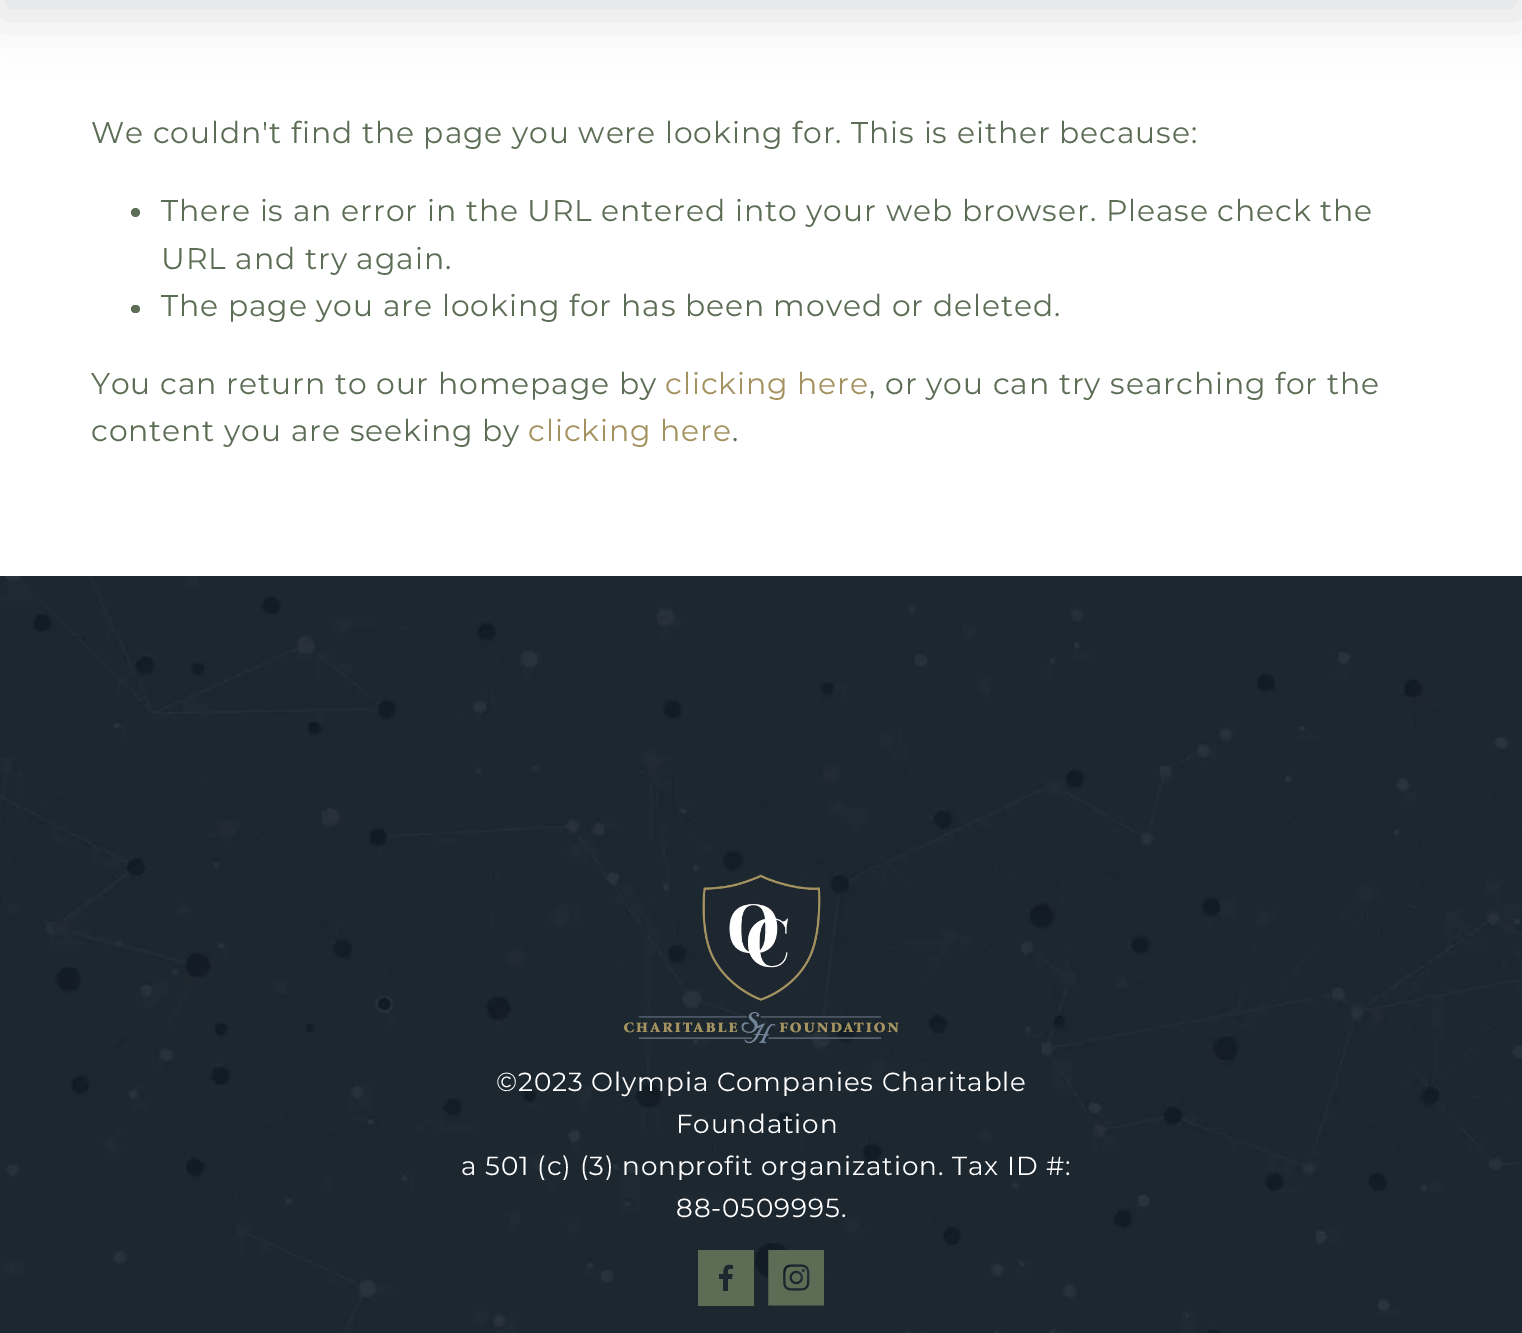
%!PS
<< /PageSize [1522 1333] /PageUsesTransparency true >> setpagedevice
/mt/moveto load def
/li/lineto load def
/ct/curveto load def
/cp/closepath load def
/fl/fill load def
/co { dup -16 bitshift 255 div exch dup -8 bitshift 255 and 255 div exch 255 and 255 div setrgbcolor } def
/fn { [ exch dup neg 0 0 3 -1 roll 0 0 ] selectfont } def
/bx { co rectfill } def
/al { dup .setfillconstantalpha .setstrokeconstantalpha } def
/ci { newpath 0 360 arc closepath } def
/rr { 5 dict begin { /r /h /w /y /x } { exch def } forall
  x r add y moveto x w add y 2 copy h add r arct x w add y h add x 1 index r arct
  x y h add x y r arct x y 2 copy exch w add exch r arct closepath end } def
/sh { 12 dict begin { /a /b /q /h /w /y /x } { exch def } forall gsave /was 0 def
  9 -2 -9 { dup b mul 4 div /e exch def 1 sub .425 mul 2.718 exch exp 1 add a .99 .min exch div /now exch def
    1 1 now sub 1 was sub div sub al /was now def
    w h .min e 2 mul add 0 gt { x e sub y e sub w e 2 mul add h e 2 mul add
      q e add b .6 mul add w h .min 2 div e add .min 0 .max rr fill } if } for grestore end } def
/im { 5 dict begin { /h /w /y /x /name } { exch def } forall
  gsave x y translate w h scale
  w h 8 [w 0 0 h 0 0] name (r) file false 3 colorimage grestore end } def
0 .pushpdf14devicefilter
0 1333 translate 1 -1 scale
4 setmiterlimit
0 0 1522 1333 16#FFFFFF bx
16#DEDFE0 co
-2 -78 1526 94 0 26 1 sh
16#5C6D55 co
135.5 212.5 4.5 ci fl
131 305 9 8 4 rr fl
(media/1.raw) 0 576 1522 757 im
(media/2.raw) 624 874 275 170 im
698 1250 mt 698 1306 li 754 1306 li 754 1250 li cp 733 1269 mt 728 1269 728 1269 728 1274 ct 733 1274 li 732 1279 li 728 1279 li 728 1291 li 723 1291 li 723 1279 li 719 1279 li 719 1274 li 723 1274 li 723 1267 725 1263 733 1265 ct cp fl
(media/3.raw) 768 1250 56 56 im
/Montserrat-Regular 29.85 fn
91 143 mt .9 0 (We couldn't find the page you were looking for. This is either because:) ashow
161 221 mt .9 0 (There is an error in the URL entered into your web browser. Please check the) ashow
161 269 mt .9 0 (URL and try again.) ashow
161 316 mt .9 0 (The page you are looking for has been moved or deleted.) ashow
91 394 mt .9 0 (You can return to our homepage by) ashow
16#A39260 co
665 394 mt .9 0 (clicking here) ashow
16#5C6D55 co
869 394 mt .9 0 (, or you can try searching for the) ashow
91 441 mt .9 0 (content you are seeking by) ashow
16#A39260 co
528 441 mt .9 0 (clicking here) ashow
16#5C6D55 co
732 441 mt .9 0 (.) ashow
/Montserrat-Regular 26.2 fn
16#FFFFFF co
496 1091 mt .9 0 (©2023 Olympia Companies Charitable) ashow
676 1133 mt .9 0 (Foundation) ashow
461 1175 mt .9 0 (a 501 \(c\) \(3\) nonprofit organization. Tax ID #:) ashow
676 1217 mt .9 0 (88-0509995.) ashow
.poppdf14devicefilter showpage
